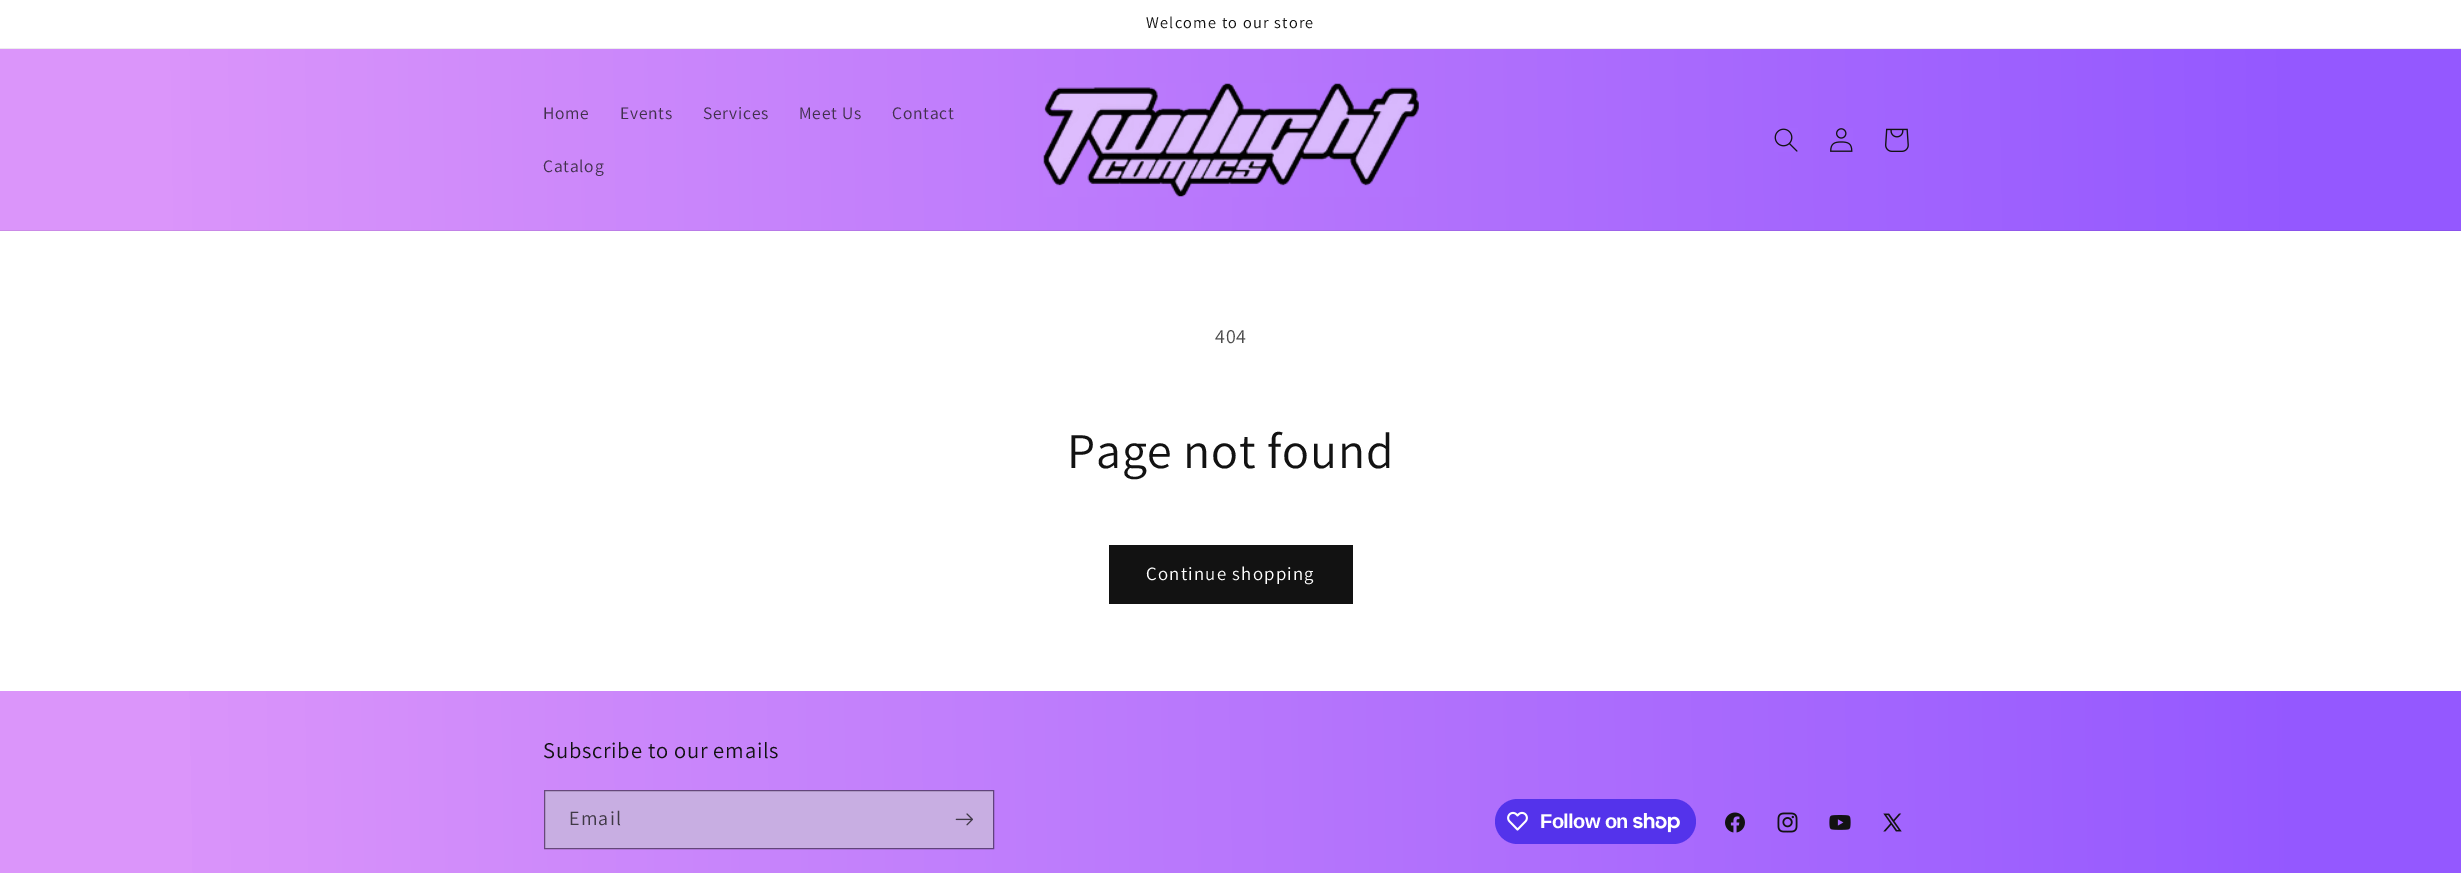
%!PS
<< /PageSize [2461 873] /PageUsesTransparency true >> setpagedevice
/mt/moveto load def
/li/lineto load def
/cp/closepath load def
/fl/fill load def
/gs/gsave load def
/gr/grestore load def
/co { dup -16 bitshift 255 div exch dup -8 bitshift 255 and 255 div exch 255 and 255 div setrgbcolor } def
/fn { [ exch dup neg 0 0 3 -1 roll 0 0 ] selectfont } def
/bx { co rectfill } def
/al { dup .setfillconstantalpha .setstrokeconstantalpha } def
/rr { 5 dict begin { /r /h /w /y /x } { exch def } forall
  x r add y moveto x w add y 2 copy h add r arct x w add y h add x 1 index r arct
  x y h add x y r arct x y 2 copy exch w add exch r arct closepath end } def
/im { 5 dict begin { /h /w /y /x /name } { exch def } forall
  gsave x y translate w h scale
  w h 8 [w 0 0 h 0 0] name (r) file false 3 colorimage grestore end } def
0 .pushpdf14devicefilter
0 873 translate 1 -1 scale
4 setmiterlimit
0 0 2461 873 16#FFFFFF bx
0 48 2461 1 16#ECECEC bx
gs 0 49 mt 2461 49 li 2461 230 li 0 230 li cp clip newpath
<< /ShadingType 2 /ColorSpace /DeviceRGB /Coords [-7.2 458 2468 415] /Extend [true true] /Function << /FunctionType 3 /Domain [0 1] /Functions [<< /FunctionType 2 /Domain [0 1] /C0 [.859 .584 .98] /C1 [.859 .584 .98] /N 1 >> << /FunctionType 2 /Domain [0 1] /C0 [.859 .584 .98] /C1 [.58 .345 1] /N 1 >> << /FunctionType 2 /Domain [0 1] /C0 [.58 .345 1] /C1 [.58 .345 1] /N 1 >>] /Bounds [.07 .94] /Encode [0 1 0 1 0 1] >> >> shfill gr
gs 0 230 mt 2461 230 li 2461 231 li 0 231 li cp clip newpath
<< /ShadingType 2 /ColorSpace /DeviceRGB /Coords [-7.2 458 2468 415] /Extend [true true] /Function << /FunctionType 3 /Domain [0 1] /Functions [<< /FunctionType 2 /Domain [0 1] /C0 [.796 .545 .906] /C1 [.796 .545 .906] /N 1 >> << /FunctionType 2 /Domain [0 1] /C0 [.796 .545 .906] /C1 [.541 .322 .925] /N 1 >> << /FunctionType 2 /Domain [0 1] /C0 [.541 .322 .925] /C1 [.541 .322 .925] /N 1 >>] /Bounds [.07 .94] /Encode [0 1 0 1 0 1] >> >> shfill gr
(media/1.raw) 1043 83 376 114 im
(media/2.raw) 1774 128 24 24 im
(media/3.raw) 1830 128 23 24 im
(media/4.raw) 1885 128 24 24 im
1109 545 244 59 16#121212 bx
gs 0 691 mt 2461 691 li 2461 873 li 0 873 li cp clip newpath
<< /ShadingType 2 /ColorSpace /DeviceRGB /Coords [-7.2 458 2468 415] /Extend [true true] /Function << /FunctionType 3 /Domain [0 1] /Functions [<< /FunctionType 2 /Domain [0 1] /C0 [.859 .584 .98] /C1 [.859 .584 .98] /N 1 >> << /FunctionType 2 /Domain [0 1] /C0 [.859 .584 .98] /C1 [.58 .345 1] /N 1 >> << /FunctionType 2 /Domain [0 1] /C0 [.58 .345 1] /C1 [.58 .345 1] /N 1 >>] /Bounds [.07 .94] /Encode [0 1 0 1 0 1] >> >> shfill gr
545 791 448 57 16#C8AEE2 bx
0.55 al
16#121212 co
544.5 790.5 449 58 rectstroke
1 al
(media/5.raw) 955 813 18 13 im
16#5433EB co
1495 799 201 45 22.5 rr fl
(media/6.raw) 1507 811 21 20 im
(media/7.raw) 1633 813 47 20 im
(media/8.raw) 1725 812 20 21 im
(media/9.raw) 1777 812 21 21 im
(media/10.raw) 1829 815 22 15 im
(media/11.raw) 1883 813 19 19 im
/Assistant-Regular 16.25 fn
16#121212 co
1146 28 mt 1.25 0 (Welcome to our store) ashow
/Assistant-Regular 17.5 fn
16#41304C co
543 119 mt .75 0 (Home) ashow
620 119 mt .75 0 (Events) ashow
703 119 mt .75 0 (Services) ashow
799 119 mt .75 0 (Meet Us) ashow
892 119 mt .75 0 (Contact) ashow
543 172 mt .75 0 (Catalog) ashow
/Assistant-Regular 20 fn
16#4D4D4D co
1215 343 mt .75 0 (404) ashow
/Assistant-Regular 50 fn
16#121212 co
1067 468 mt .75 0 (Page not found) ashow
/Assistant-Regular 18.75 fn
16#FFFFFF co
1146 580 mt 1.25 0 (Continue shopping) ashow
/Assistant-Regular 22.5 fn
16#121212 co
543 758 mt .75 0 (Subscribe to our emails) ashow
/Assistant-Regular 20 fn
16#403946 co
569 825 mt 1.25 0 (Email) ashow
/LiberationSans-Bold 20 fn
16#FFFFFF co
1540 828 mt -.6 0 (Follow on) ashow
.poppdf14devicefilter showpage
